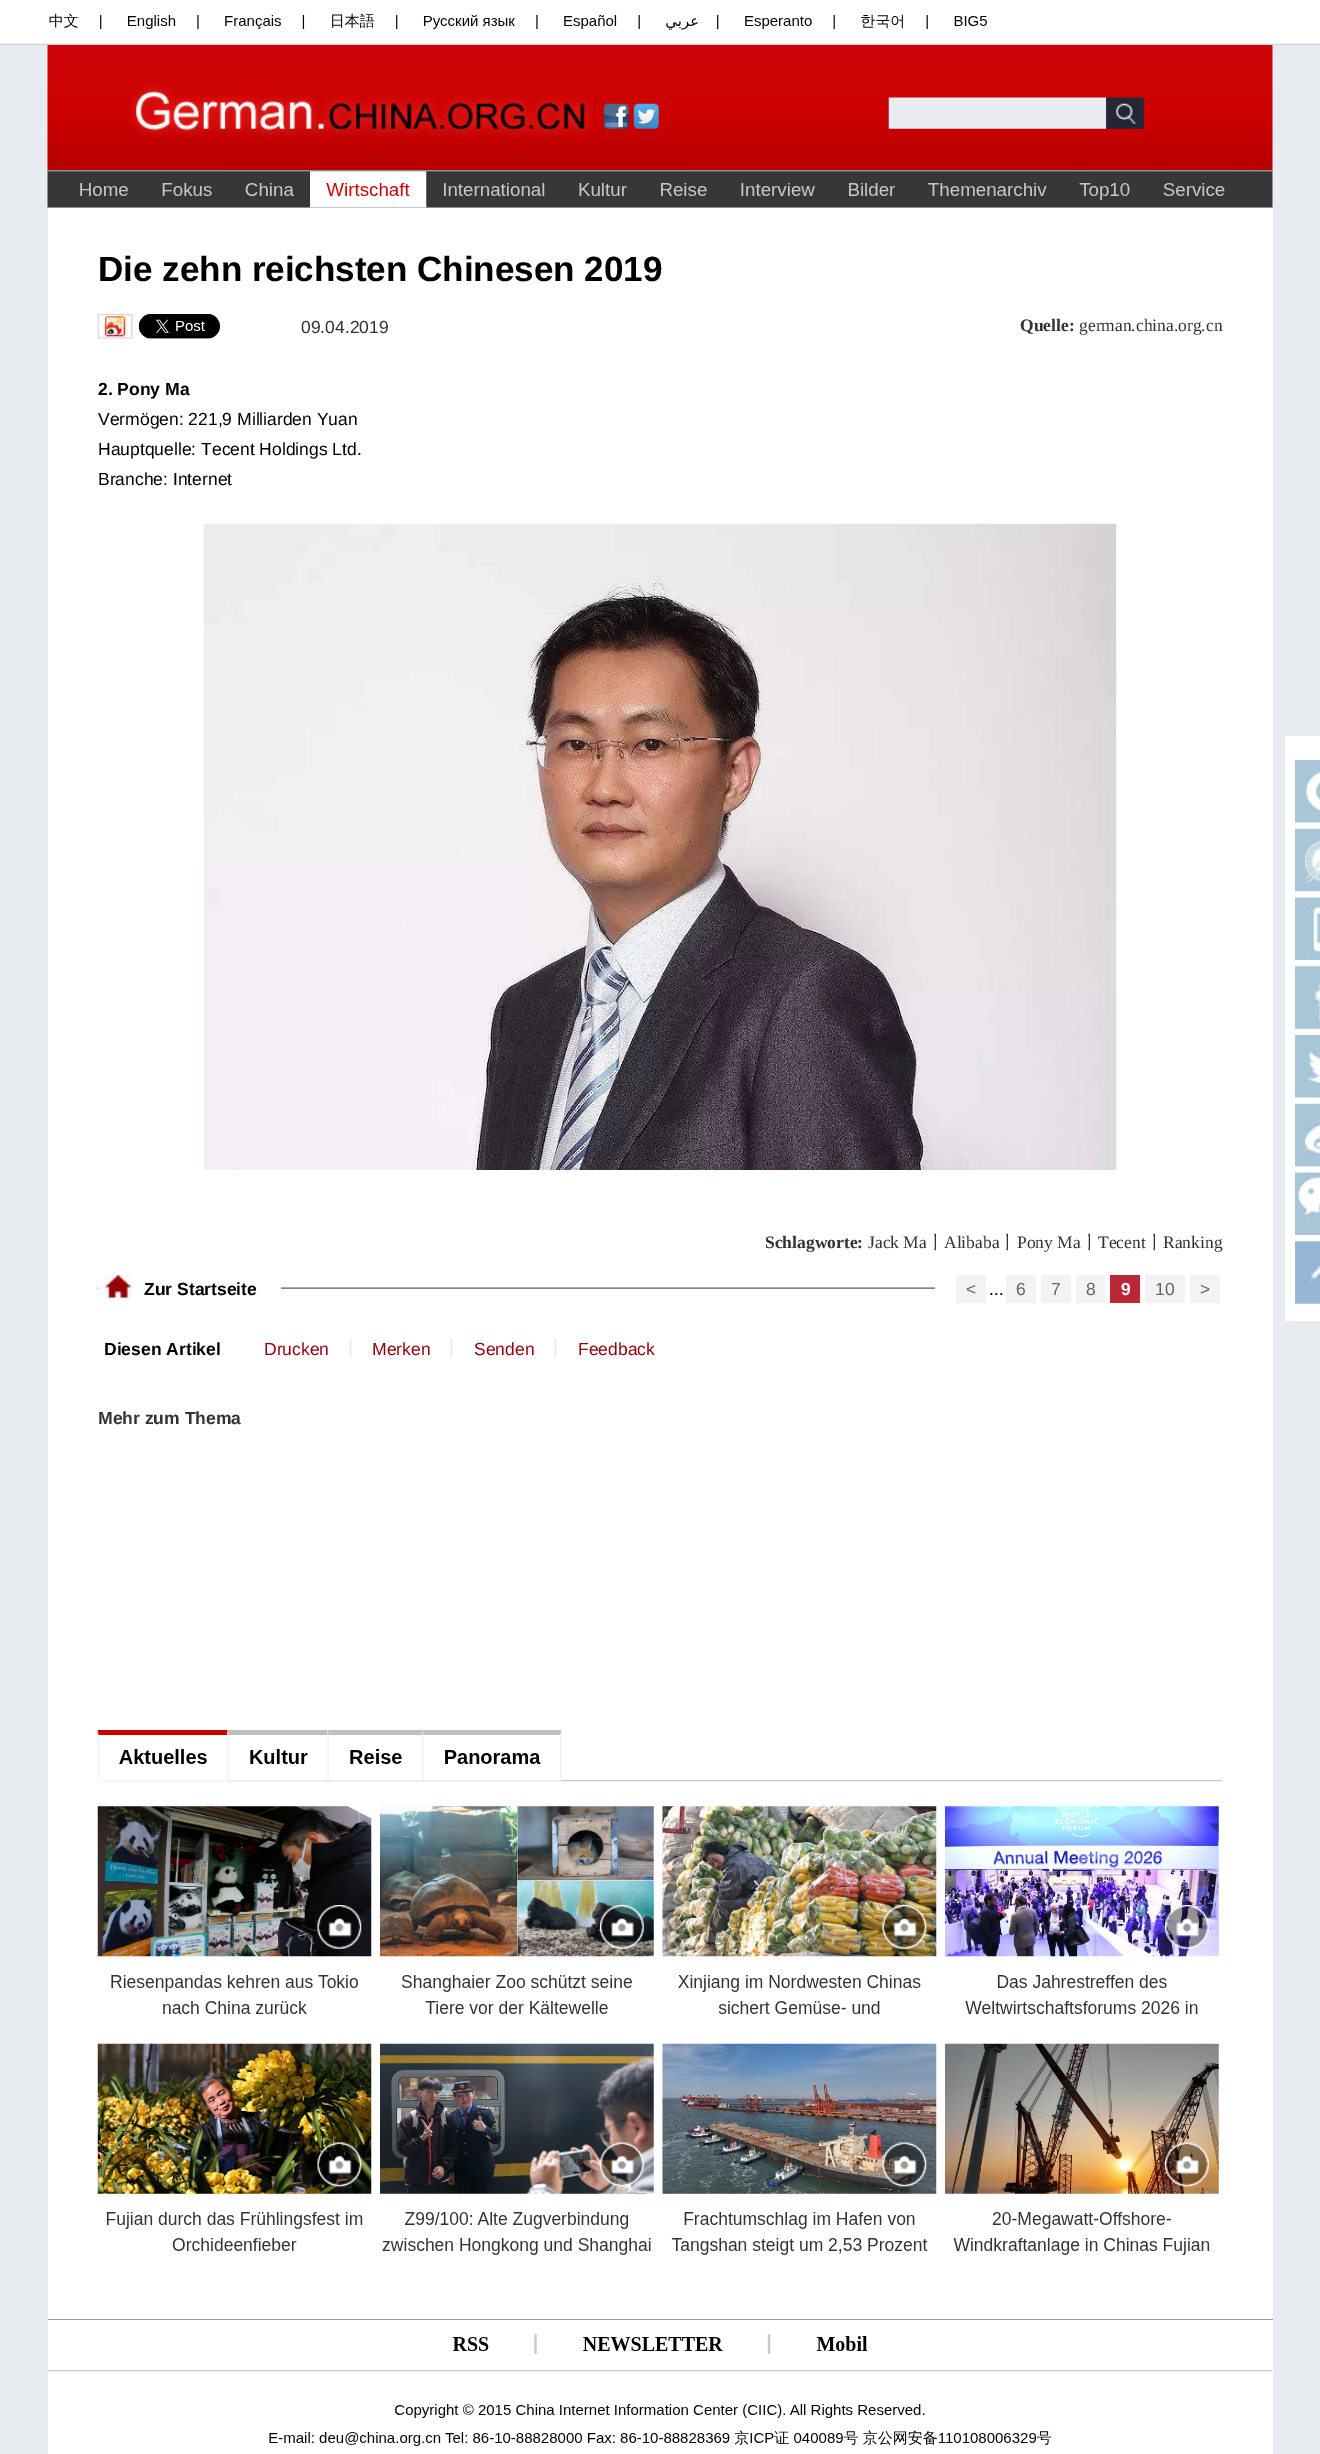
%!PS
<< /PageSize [1320 2454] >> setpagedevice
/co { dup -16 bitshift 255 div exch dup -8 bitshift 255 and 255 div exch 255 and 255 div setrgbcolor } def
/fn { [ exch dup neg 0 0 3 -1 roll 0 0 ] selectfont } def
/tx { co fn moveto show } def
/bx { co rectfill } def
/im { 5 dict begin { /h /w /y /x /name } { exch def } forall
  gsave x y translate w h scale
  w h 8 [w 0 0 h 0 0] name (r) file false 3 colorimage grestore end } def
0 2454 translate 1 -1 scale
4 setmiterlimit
0 0 1320 2454 16#E8ECF0 bx
(media/1.raw) 0 0 1320 45 im
(media/2.raw) 47 45 1226 163 im
48 208 1225 2111 16#FFFFFF bx
(media/3.raw) 97 313 36 26 im
(media/4.raw) 138 314 82 25 im
(media/5.raw) 203 523 914 647 im
(media/6.raw) 97 1287 838 2 im
98 1287 183 2 16#FFFFFF bx
(media/7.raw) 103 1275 30 24 im
956 1275 30 28 16#F3F3F3 bx
1006 1275 30 28 16#F3F3F3 bx
1041 1275 30 28 16#F3F3F3 bx
1076 1275 29 28 16#F3F3F3 bx
1110 1275 30 28 16#BA2737 bx
1145 1275 40 28 16#F3F3F3 bx
1190 1275 30 28 16#F3F3F3 bx
(media/8.raw) 97 1730 1126 525 im
1285 736 35 585 16#FFFFFF bx
(media/9.raw) 1295 760 25 63 im
(media/10.raw) 1295 828 25 64 im
(media/11.raw) 1295 897 25 63 im
(media/12.raw) 1295 966 25 63 im
(media/13.raw) 1295 1035 25 63 im
(media/14.raw) 1295 1103 25 64 im
(media/15.raw) 1295 1172 25 63 im
(media/16.raw) 1295 1241 25 63 im
48 2320 1225 134 16#FFFFFF bx
48 2319 1225 1 16#9D9D9D bx
(media/17.raw) 47 2334 1226 112 im
(Die zehn reichsten Chinesen 2019) 98 281 /LiberationSans-Bold 35 16#000000 tx
(09.04.2019) 301 333 /LiberationSans-Regular 17.5 16#333333 tx
(Quelle:) 1020 331 /LiberationSerif-Bold 17.5 16#333333 tx
(german.china.org.cn) 1079 331 /LiberationSerif-Regular 17.5 16#333333 tx
(2. Pony Ma) 98 395 /LiberationSans-Bold 17.5 16#000000 tx
(Vermögen: 221,9 Milliarden Yuan) 98 425 /LiberationSans-Regular 17.5 16#000000 tx
(Hauptquelle: Tecent Holdings Ltd.) 98 455 /LiberationSans-Regular 17.5 16#000000 tx
(Branche: Internet) 98 485 /LiberationSans-Regular 17.5 16#000000 tx
(Schlagworte:) 765 1248 /LiberationSerif-Bold 17.5 16#333333 tx
(Jack Ma) 868 1248 /LiberationSerif-Regular 17.5 16#333333 tx
(丨) 927 1248 /WenQuanYiZenHei-Medium 17.5 16#333333 tx
(Alibaba) 944 1248 /LiberationSerif-Regular 17.5 16#333333 tx
(丨) 999 1248 /WenQuanYiZenHei-Medium 17.5 16#333333 tx
(Pony Ma) 1017 1248 /LiberationSerif-Regular 17.5 16#333333 tx
(丨) 1081 1248 /WenQuanYiZenHei-Medium 17.5 16#333333 tx
(Tecent) 1098 1248 /LiberationSerif-Regular 17.5 16#333333 tx
(丨) 1146 1248 /WenQuanYiZenHei-Medium 17.5 16#333333 tx
(Ranking) 1163 1248 /LiberationSerif-Regular 17.5 16#333333 tx
(Zur Startseite) 144 1295 /LiberationSans-Bold 17.5 16#000000 tx
(<) 966 1295 /LiberationSans-Regular 17.5 16#666666 tx
(...) 989 1295 /LiberationSans-Regular 17.5 16#000000 tx
(6) 1016 1295 /LiberationSans-Regular 17.5 16#666666 tx
(7) 1051 1295 /LiberationSans-Regular 17.5 16#666666 tx
(8) 1086 1295 /LiberationSans-Regular 17.5 16#666666 tx
(9) 1121 1295 /LiberationSans-Bold 17.5 16#FFFFFF tx
(10) 1155 1295 /LiberationSans-Regular 17.5 16#666666 tx
(>) 1200 1295 /LiberationSans-Regular 17.5 16#666666 tx
(Diesen Artikel) 104 1355 /LiberationSans-Bold 17.5 16#000000 tx
(Drucken) 264 1355 /LiberationSans-Regular 17.5 16#92000E tx
(丨) 341 1355 /WenQuanYiZenHei-Medium 20 16#E7E7E7 tx
(Merken) 372 1355 /LiberationSans-Regular 17.5 16#92000E tx
(丨) 442 1355 /WenQuanYiZenHei-Medium 20 16#E7E7E7 tx
(Senden) 474 1355 /LiberationSans-Regular 17.5 16#92000E tx
(丨) 546 1355 /WenQuanYiZenHei-Medium 20 16#E7E7E7 tx
(Feedback) 578 1355 /LiberationSans-Regular 17.5 16#92000E tx
(Mehr zum Thema) 98 1424 /LiberationSans-Bold 17.5 16#333333 tx
showpage
